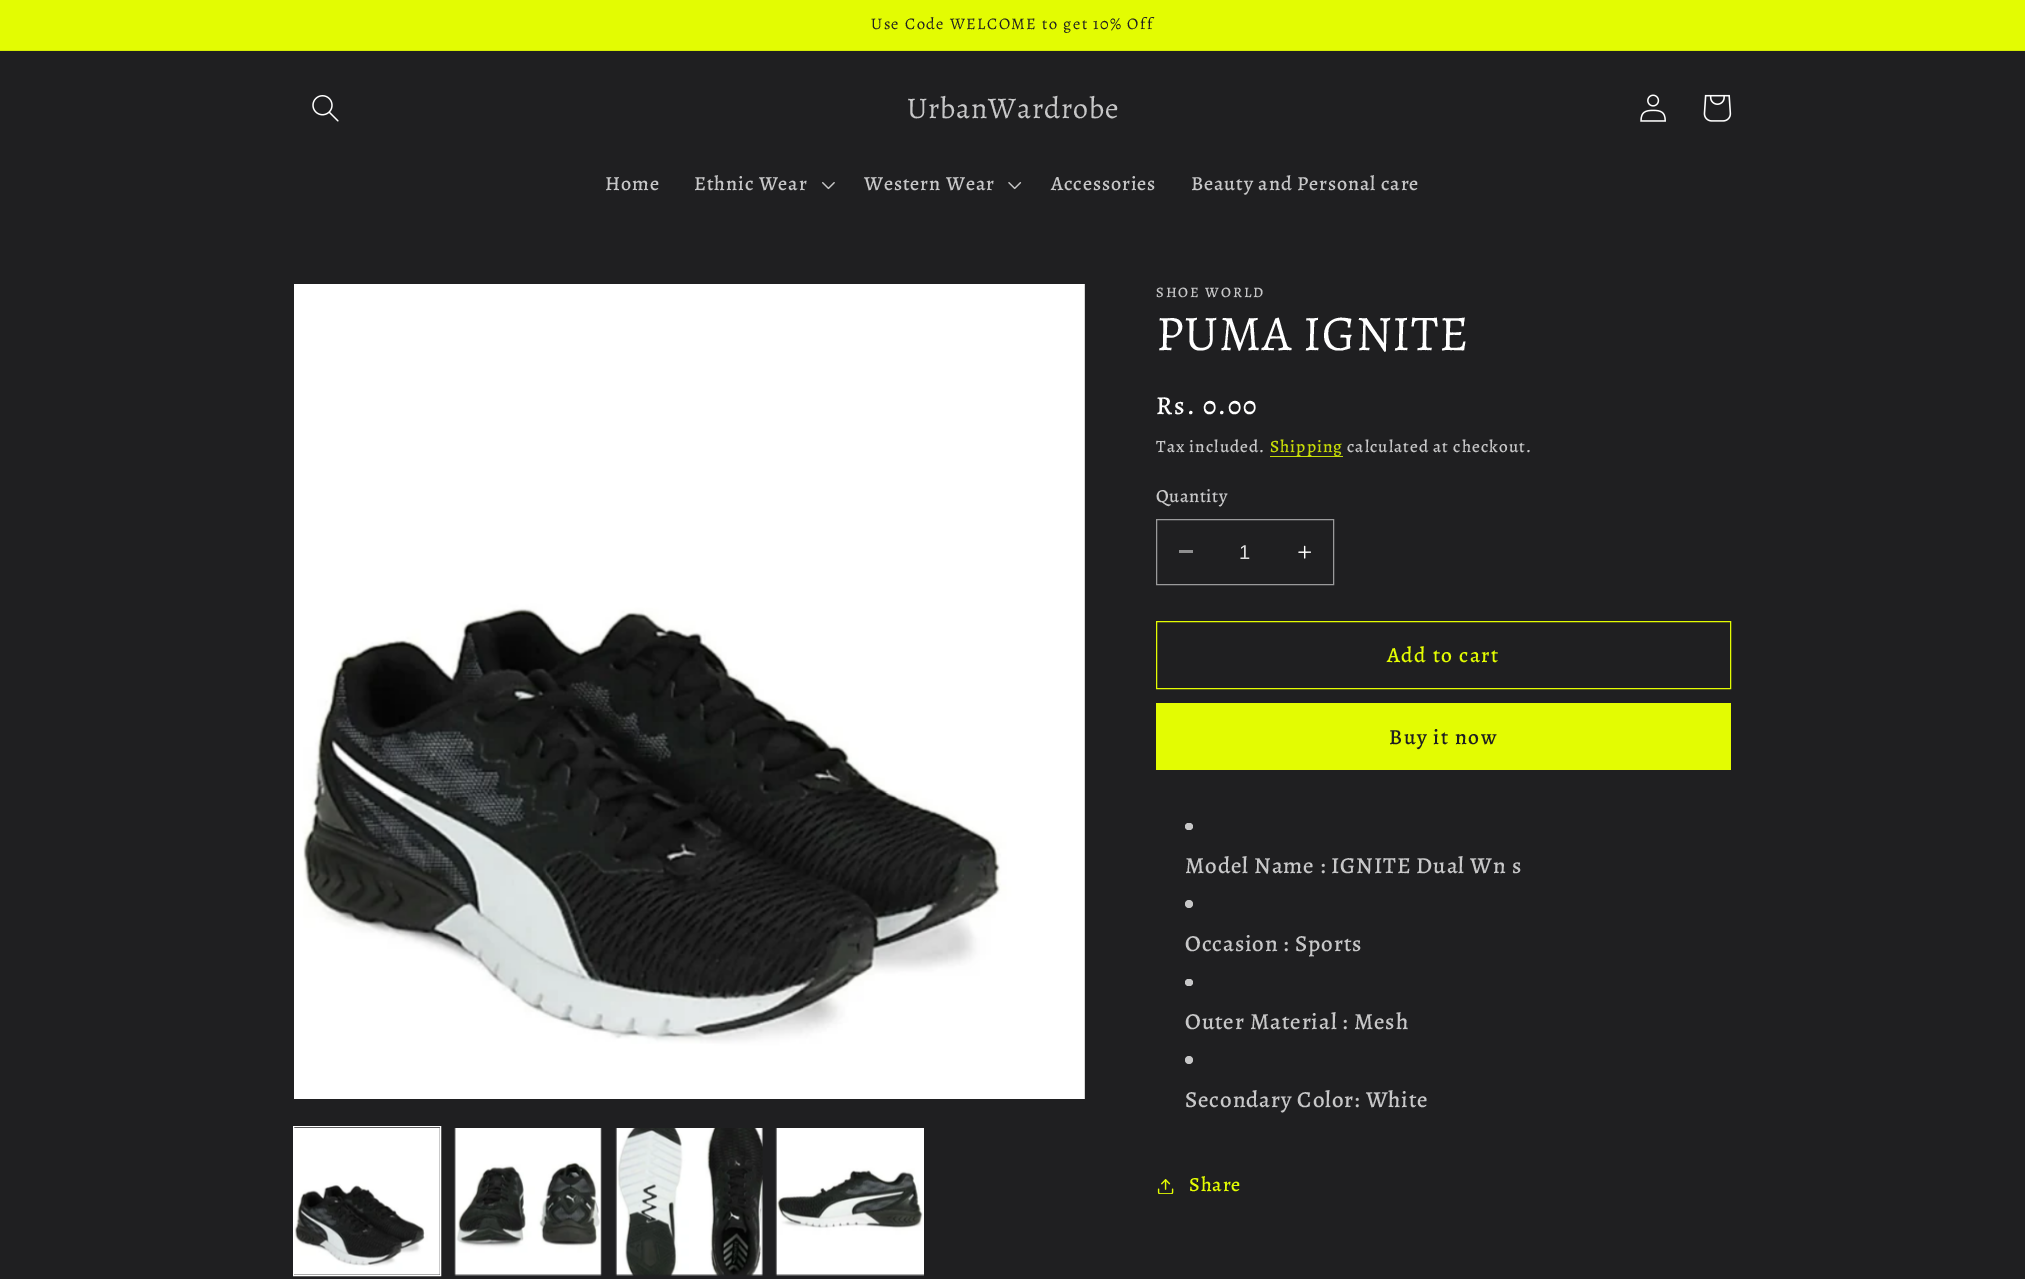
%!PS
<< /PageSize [2025 1279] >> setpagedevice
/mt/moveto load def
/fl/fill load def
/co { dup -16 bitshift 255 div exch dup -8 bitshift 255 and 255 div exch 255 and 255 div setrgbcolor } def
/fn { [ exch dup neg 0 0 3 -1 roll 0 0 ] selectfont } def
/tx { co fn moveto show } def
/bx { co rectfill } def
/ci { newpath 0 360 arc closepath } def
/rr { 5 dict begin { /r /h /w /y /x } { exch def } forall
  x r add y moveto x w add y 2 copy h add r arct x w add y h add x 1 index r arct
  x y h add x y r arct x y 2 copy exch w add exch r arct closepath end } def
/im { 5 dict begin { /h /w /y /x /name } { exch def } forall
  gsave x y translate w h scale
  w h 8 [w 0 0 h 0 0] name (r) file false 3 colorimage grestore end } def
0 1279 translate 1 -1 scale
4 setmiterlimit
0 0 2025 1279 16#1F1F21 bx
0 0 2025 50 16#E3FC02 bx
0 50 2025 1 16#D3EA04 bx
(media/1.raw) 312 95 27 27 im
(media/2.raw) 1640 94 26 28 im
(media/3.raw) 1703 94 29 28 im
(media/4.raw) 822 182 13 8 im
(media/5.raw) 1008 182 14 8 im
(media/6.raw) 294 284 791 815 im
16#FFFFFF co
293.5 1126.5 147 149 rectstroke
(media/7.raw) 294 1128 146 147 im
(media/8.raw) 454 1128 148 148 im
(media/9.raw) 615 1128 148 148 im
(media/10.raw) 775 1128 149 148 im
1270 456 73 1 16#C6DB07 bx
1179 550 14 3 16#8F8F90 bx
(media/11.raw) 1298 545 13 14 im
16#9A9A9B co
1156.5 519.5 177 65 rectstroke
16#E3FC02 co
1156.5 621.5 574 67 rectstroke
1156 703 575 67 16#E3FC02 bx
16#C7C7C8 co
1185 823 8 7 3.5 rr fl
1189 904 4 ci fl
1185 979 8 7 3.5 rr fl
1189 1060 4 ci fl
(media/12.raw) 1157 1179 17 15 im
/Alegreya-Regular 16.25 fn
16#1F1F21 co
871 29 mt 1.45 0 (Use Code WELCOME to get 10% Off) ashow
/Alegreya-Regular 30 fn
16#C7C7C8 co
907 118 mt .75 0 (UrbanWardrobe) ashow
/Alegreya-Medium 20.1 fn
605 190 mt .85 0 (Home) ashow
694 190 mt .85 0 (Ethnic Wear) ashow
864 190 mt .85 0 (Western Wear) ashow
1051 190 mt .85 0 (Accessories) ashow
1191 190 mt .85 0 (Beauty and Personal care) ashow
/Alegreya-Medium 14.5 fn
1156 297 mt 1.9 0 (SHOE WORLD) ashow
/Alegreya-Regular 50 fn
16#FFFFFF co
1156 350 mt .75 0 (PUMA IGNITE) ashow
/Alegreya-Medium 26 fn
1156 414 mt 1.9 0 (Rs. 0.00) ashow
/Alegreya-Medium 17.25 fn
16#C7C7C8 co
1156 452 mt 1 0 (Tax included.) ashow
16#C6DB07 co
1270 452 mt 1 0 (Shipping) ashow
16#C7C7C8 co
1347 452 mt 1 0 (calculated at checkout.) ashow
/Alegreya-Medium 18.5 fn
1156 502 mt .5 0 (Quantity) ashow
(1) 1239 559 /LiberationSans-Regular 20.1 16#DDDDDE tx
/Alegreya-Medium 21.5 fn
16#E3FC02 co
1387 662 mt 1.45 0 (Add to cart) ashow
16#1F1F21 co
1389 744 mt 1.45 0 (Buy it now) ashow
/Alegreya-Medium 23 fn
16#C7C7C8 co
1185 873 mt .85 0 (Model Name : IGNITE Dual Wn s) ashow
1185 951 mt .85 0 (Occasion : Sports) ashow
1185 1029 mt .85 0 (Outer Material : Mesh) ashow
1185 1107 mt .85 0 (Secondary Color: White) ashow
/Alegreya-Medium 20.1 fn
16#E3FC02 co
1189 1191 mt .85 0 (Share) ashow
showpage
